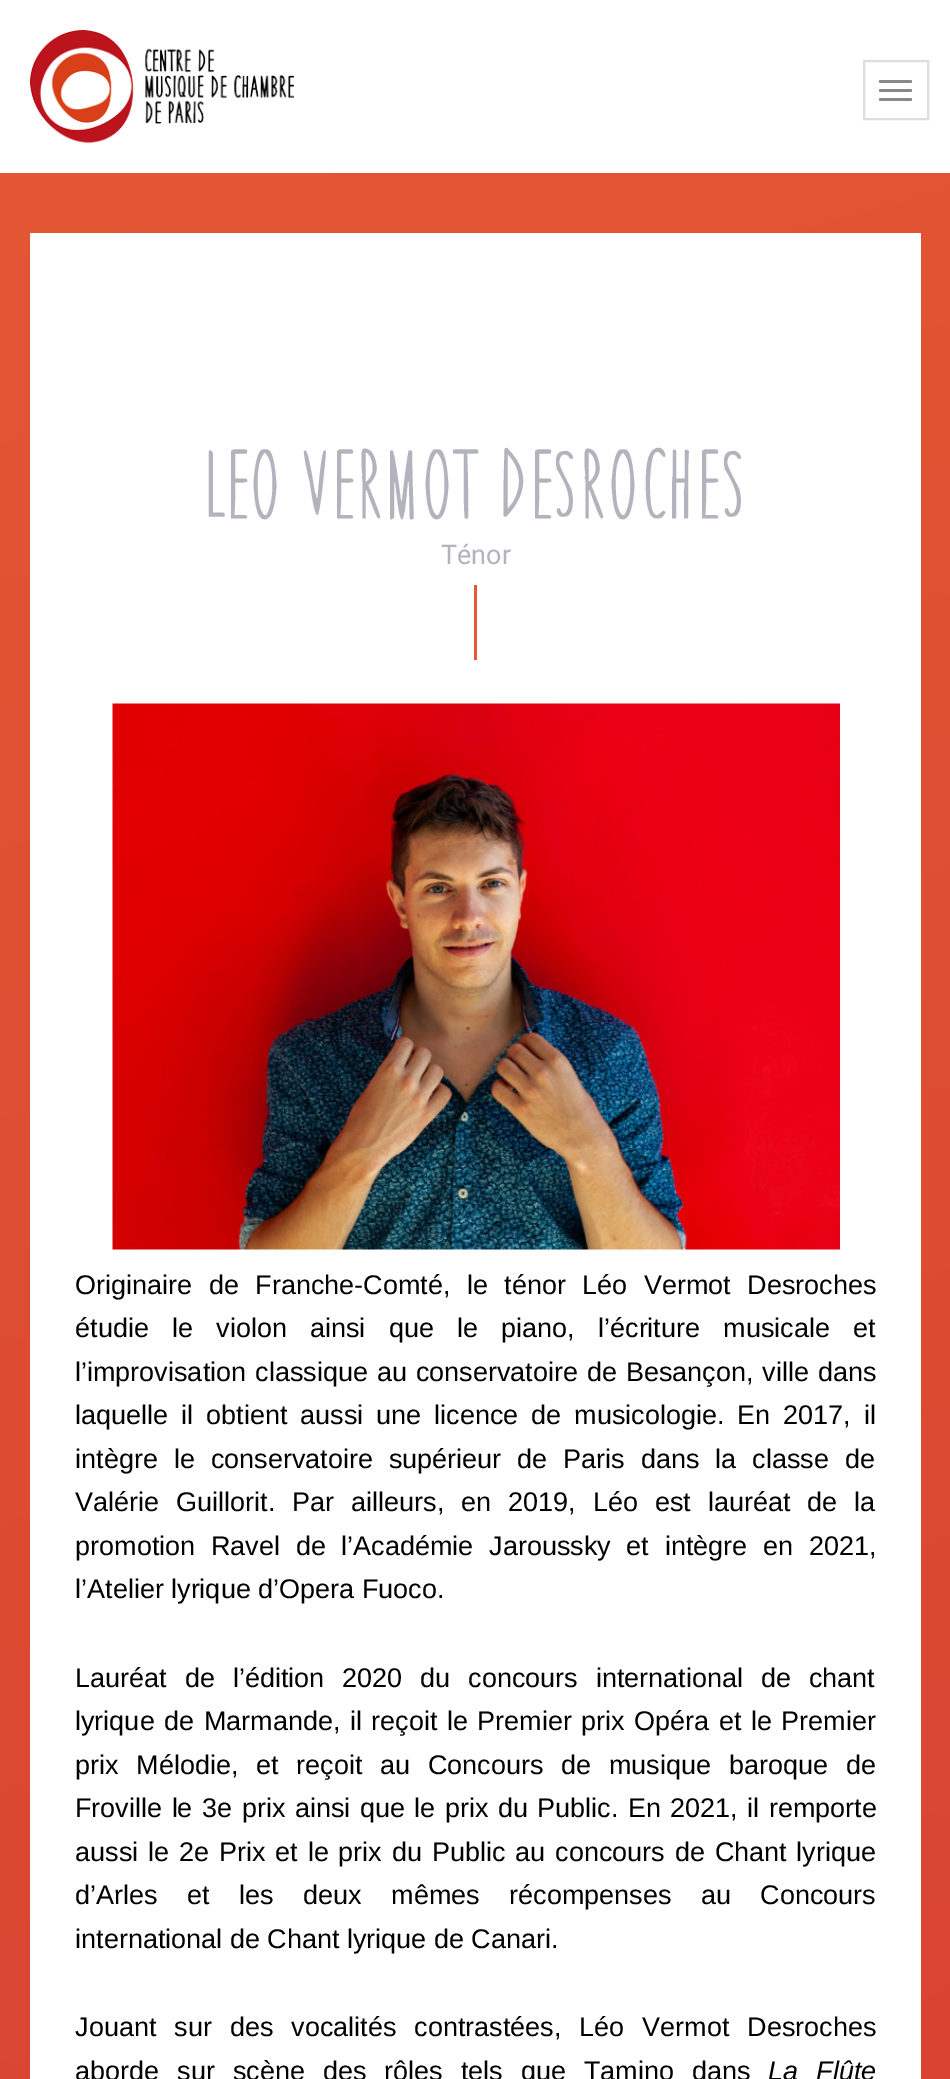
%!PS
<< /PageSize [950 2079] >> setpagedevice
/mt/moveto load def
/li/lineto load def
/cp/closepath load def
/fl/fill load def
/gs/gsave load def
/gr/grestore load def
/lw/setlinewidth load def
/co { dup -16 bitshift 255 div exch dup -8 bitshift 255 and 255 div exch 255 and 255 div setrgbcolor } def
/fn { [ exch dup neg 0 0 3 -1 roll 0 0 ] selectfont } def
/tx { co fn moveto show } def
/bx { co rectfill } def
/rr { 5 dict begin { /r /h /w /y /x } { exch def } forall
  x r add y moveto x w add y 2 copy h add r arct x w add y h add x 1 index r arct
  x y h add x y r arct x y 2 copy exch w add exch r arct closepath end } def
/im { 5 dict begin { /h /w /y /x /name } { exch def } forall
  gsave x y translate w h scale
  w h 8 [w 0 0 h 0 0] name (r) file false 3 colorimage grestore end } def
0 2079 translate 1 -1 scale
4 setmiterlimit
0 0 950 2079 16#FFFFFF bx
gs 0 173 mt 950 173 li 950 2079 li 0 2079 li cp clip newpath
<< /ShadingType 2 /ColorSpace /DeviceRGB /Coords [-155 41 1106 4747] /Extend [true true] /Function << /FunctionType 2 /Domain [0 1] /C0 [.894 .345 .204] /C1 [.8 .18 .184] /N 1 >> >> shfill gr
(media/1.raw) 30 30 264 113 im
16#DDDDDD co
2 lw
864 61 64 58 rectstroke
16#888888 co
879 80 33 3 1.5 rr fl
879 89 33 3 1.5 rr fl
879 98 33 3 1.5 rr fl
30 233 891 1846 16#FFFFFF bx
474 585 3 75 16#E45834 bx
(media/2.raw) 112 703 728 547 im
(Leo Vermot Desroches) 204 510 /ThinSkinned-Thin 75 16#B3B3BD tx
(Ténor) 441 564 /Roboto-Regular 27 16#B3B3BD tx
/LiberationSans-Regular 27 fn
16#000000 co
75 1294 mt 9 0 32 (Originaire de Franche-Comté, le ténor Léo Vermot Desroches) widthshow
75 1337 mt 15.75 0 32 (étudie le violon ainsi que le piano, l’écriture musicale et) widthshow
75 1381 mt 1.5 0 32 (l’improvisation classique au conservatoire de Besançon, ville dans) widthshow
75 1424 mt 5.5 0 32 (laquelle il obtient aussi une licence de musicologie. En 2017, il) widthshow
75 1468 mt 8.5 0 32 (intègre le conservatoire supérieur de Paris dans la classe de) widthshow
75 1511 mt 9.5 0 32 (Valérie Guillorit. Par ailleurs, en 2019, Léo est lauréat de la) widthshow
75 1555 mt 8.25 0 32 (promotion Ravel de l’Académie Jaroussky et intègre en 2021,) widthshow
(l’Atelier lyrique d’Opera Fuoco.) 75 1598 /LiberationSans-Regular 27 16#000000 tx
75 1687 mt 10.5 0 32 (Lauréat de l’édition 2020 du concours international de chant) widthshow
75 1730 mt 2 0 32 (lyrique de Marmande, il reçoit le Premier prix Opéra et le Premier) widthshow
75 1774 mt 10.25 0 32 (prix Mélodie, et reçoit au Concours de musique baroque de) widthshow
75 1817 mt 2 0 32 (Froville le 3e prix ainsi que le prix du Public. En 2021, il remporte) widthshow
75 1861 mt 2.4 0 32 (aussi le 2e Prix et le prix du Public au concours de Chant lyrique) widthshow
75 1904 mt 22 0 32 (d’Arles et les deux mêmes récompenses au Concours) widthshow
(international de Chant lyrique de Canari.) 75 1948 /LiberationSans-Regular 27 16#000000 tx
75 2036 mt 10.5 0 32 (Jouant sur des vocalités contrastées, Léo Vermot Desroches) widthshow
75 2080 mt 10.5 0 32 (aborde sur scène des rôles tels que Tamino dans) widthshow
/LiberationSans-Italic 27 fn
768 2080 mt 10.5 0 32 (La Flûte) widthshow
showpage
